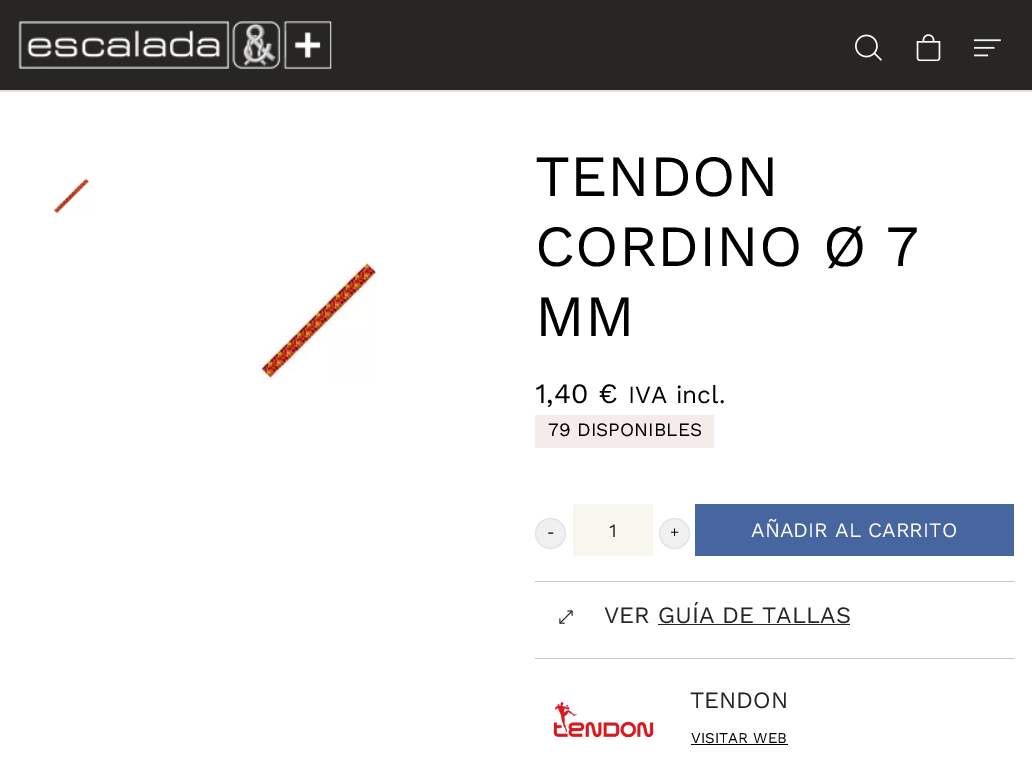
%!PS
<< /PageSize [1032 761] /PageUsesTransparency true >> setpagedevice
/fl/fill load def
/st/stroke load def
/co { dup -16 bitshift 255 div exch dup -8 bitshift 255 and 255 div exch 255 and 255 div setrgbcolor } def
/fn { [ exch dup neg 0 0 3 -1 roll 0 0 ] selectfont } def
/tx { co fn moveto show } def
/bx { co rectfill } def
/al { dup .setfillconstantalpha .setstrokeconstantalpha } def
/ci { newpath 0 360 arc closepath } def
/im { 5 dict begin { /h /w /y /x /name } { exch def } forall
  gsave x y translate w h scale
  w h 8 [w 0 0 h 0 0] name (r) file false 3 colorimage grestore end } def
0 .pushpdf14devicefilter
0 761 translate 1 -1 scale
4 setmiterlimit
0 0 1032 761 16#FFFFFF bx
0 0 1032 90 16#272623 bx
(media/1.raw) 18 21 314 48 im
(media/2.raw) 855 34 27 27 im
(media/3.raw) 916 34 25 27 im
(media/4.raw) 974 39 27 18 im
0 90 1032 2 16#E3E1DF bx
(media/5.raw) 53 178 37 36 im
(media/6.raw) 257 261 120 121 im
535 415 179 33 16#F6EBEB bx
16#F0F0F0 co
550.5 533.5 15.5 ci fl
0.4 al
16#CCCCCC co
550.5 533.5 15 ci st
1 al
573 504 80 52 16#F7F6EF bx
16#F0F0F0 co
674.5 533.5 15.5 ci fl
0.4 al
16#CCCCCC co
674.5 533.5 15 ci st
1 al
695 504 319 52 16#4766A0 bx
535 581 479 1 16#CCC9C5 bx
(media/7.raw) 559 610 14 14 im
658 624 192 1 16#272623 bx
535 658 479 1 16#CCC9C5 bx
(media/8.raw) 553 702 101 36 im
691 744 97 1 16#000000 bx
(TENDON) 535 196 /WorkSans-Regular 58.25 16#000000 tx
(CORDINO Ø 7) 535 266 /WorkSans-Regular 58.25 16#000000 tx
(MM) 535 336 /WorkSans-Regular 58.25 16#000000 tx
(1,40 €) 535 403 /WorkSans-Regular 28 16#000000 tx
(IVA incl.) 628 403 /WorkSans-Regular 24.5 16#000000 tx
(79 DISPONIBLES) 548 436 /WorkSans-Regular 19 16#000000 tx
(-) 547 537 /WorkSans-Regular 15 16#000000 tx
(1) 609 537 /WorkSans-Regular 19 16#272623 tx
(+) 670 537 /WorkSans-Regular 15 16#000000 tx
(AÑADIR AL CARRITO) 751 537 /WorkSans-Regular 20.6 16#FFFFFF tx
(VER GUÍA DE TALLAS) 604 623 /WorkSans-Regular 23.5 16#272623 tx
(TENDON) 690 708 /WorkSans-Regular 23.5 16#272623 tx
(VISITAR WEB) 691 743 /WorkSans-Regular 15 16#000000 tx
.poppdf14devicefilter showpage
